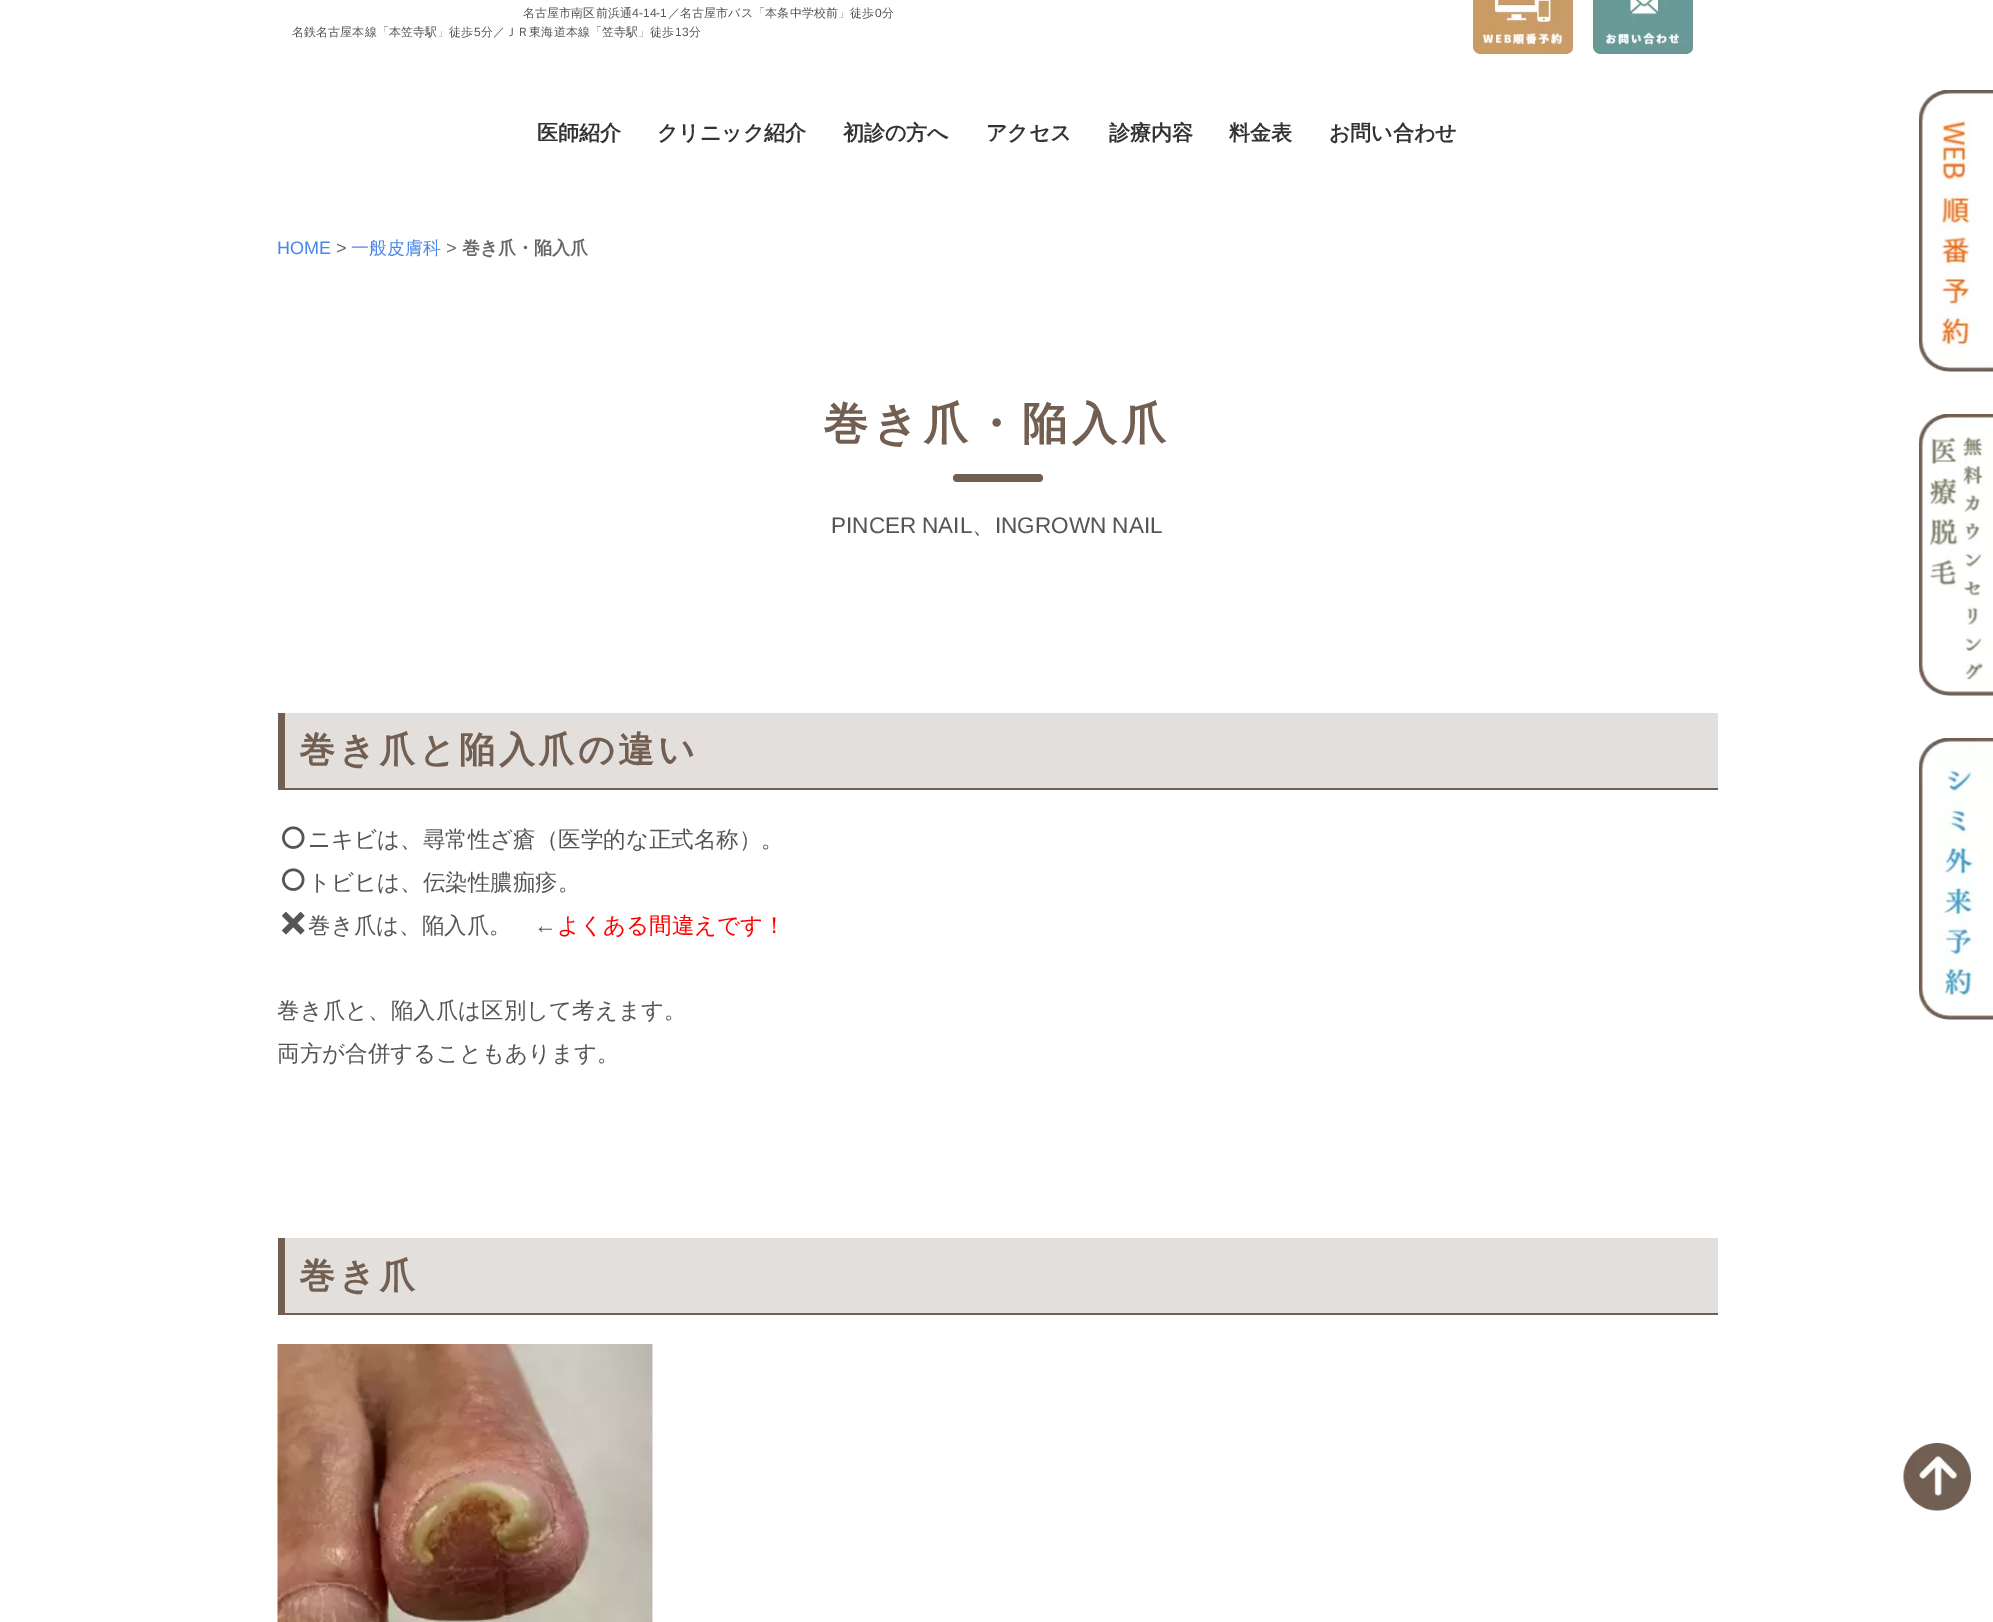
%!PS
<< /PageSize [1993 1622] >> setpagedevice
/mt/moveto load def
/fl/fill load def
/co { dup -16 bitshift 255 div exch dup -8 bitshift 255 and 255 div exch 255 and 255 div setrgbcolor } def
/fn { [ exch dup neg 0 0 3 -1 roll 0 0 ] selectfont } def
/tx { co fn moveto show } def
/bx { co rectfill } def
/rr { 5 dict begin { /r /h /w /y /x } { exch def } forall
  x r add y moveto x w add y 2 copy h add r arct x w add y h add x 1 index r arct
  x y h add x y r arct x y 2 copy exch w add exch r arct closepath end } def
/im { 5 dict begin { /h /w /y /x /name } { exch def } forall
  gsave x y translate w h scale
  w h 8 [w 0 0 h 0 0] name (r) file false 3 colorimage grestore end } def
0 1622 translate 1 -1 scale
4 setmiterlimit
0 0 1993 1622 16#FFFFFF bx
(media/1.raw) 540 0 9 2 im
(media/2.raw) 1473 0 100 54 im
(media/3.raw) 1593 0 100 54 im
16#725F51 co
953 474 90 8 4 rr fl
(media/4.raw) 1919 90 74 282 im
(media/5.raw) 1919 414 74 282 im
(media/6.raw) 1919 738 74 282 im
285 713 1433 75 16#E3DFDD bx
278 788 1440 2 16#725F51 bx
278 713 7 76 16#725F51 bx
(media/7.raw) 282 826 23 23 im
(media/7.raw) 282 868 23 23 im
(media/8.raw) 282 911 23 24 im
285 1238 1433 75 16#E3DFDD bx
278 1313 1440 2 16#725F51 bx
278 1238 7 76 16#725F51 bx
(media/9.raw) 277 1344 376 278 im
(media/10.raw) 1903 1443 68 68 im
/WenQuanYiZenHei-Medium 12 fn
16#555555 co
523 17 mt .1 0 (名古屋市南区前浜通) ashow
/LiberationSans-Regular 12 fn
632 17 mt .1 0 (4-14-1) ashow
/WenQuanYiZenHei-Medium 12 fn
668 17 mt .1 0 (／名古屋市バス「本条中学校前」徒歩) ashow
/LiberationSans-Regular 12 fn
875 17 mt .1 0 (0) ashow
/WenQuanYiZenHei-Medium 12 fn
882 17 mt .1 0 (分) ashow
292 36 mt .1 0 (名鉄名古屋本線「本笠寺駅」徒歩) ashow
/LiberationSans-Regular 12 fn
474 36 mt .1 0 (5) ashow
/WenQuanYiZenHei-Medium 12 fn
481 36 mt .1 0 (分／ＪＲ東海道本線「笠寺駅」徒歩) ashow
/LiberationSans-Regular 12 fn
675 36 mt .1 0 (13) ashow
/WenQuanYiZenHei-Medium 12 fn
689 36 mt .1 0 (分) ashow
(医師紹介) 537 140 /WenQuanYiZenHei-Bold 21 16#333333 tx
(クリニック紹介) 657 140 /WenQuanYiZenHei-Bold 21 16#333333 tx
(初診の方へ) 843 140 /WenQuanYiZenHei-Bold 21 16#333333 tx
(アクセス) 986 140 /WenQuanYiZenHei-Bold 21 16#333333 tx
(診療内容) 1109 140 /WenQuanYiZenHei-Bold 21 16#333333 tx
(料金表) 1229 140 /WenQuanYiZenHei-Bold 21 16#333333 tx
(お問い合わせ) 1329 140 /WenQuanYiZenHei-Bold 21 16#333333 tx
(HOME) 277 254 /LiberationSans-Regular 18 16#4A86E8 tx
(>) 336 254 /LiberationSans-Regular 18 16#666666 tx
(一般皮膚科) 351 254 /WenQuanYiZenHei-Medium 18 16#4A86E8 tx
(>) 446 254 /LiberationSans-Regular 18 16#666666 tx
(巻き爪・陥入爪) 462 254 /WenQuanYiZenHei-Bold 18 16#666666 tx
/WenQuanYiZenHei-Bold 45 fn
16#725F51 co
823 439 mt 4.5 0 (巻き爪・陥入爪) ashow
(PINCER NAIL) 831 533 /LiberationSans-Regular 22.5 16#555555 tx
(、) 972 533 /WenQuanYiZenHei-Medium 22.5 16#555555 tx
(INGROWN NAIL) 995 533 /LiberationSans-Regular 22.5 16#555555 tx
/WenQuanYiZenHei-Bold 36 fn
16#725F51 co
299 762 mt 3.6 0 (巻き爪と陥入爪の違い) ashow
(ニキビは、尋常性ざ瘡（医学的な正式名称）。) 308 847 /WenQuanYiZenHei-Medium 22.5 16#555555 tx
(トビヒは、伝染性膿痂疹。) 308 890 /WenQuanYiZenHei-Medium 22.5 16#555555 tx
(巻き爪は、陥入爪。) 308 933 /WenQuanYiZenHei-Medium 22.5 16#555555 tx
(←) 534 933 /LiberationSans-Regular 22.5 16#555555 tx
(よくある間違えです！) 557 933 /WenQuanYiZenHei-Medium 22.5 16#FF0000 tx
(巻き爪と、陥入爪は区別して考えます。) 277 1018 /WenQuanYiZenHei-Medium 22.5 16#555555 tx
(両方が合併することもあります。) 277 1061 /WenQuanYiZenHei-Medium 22.5 16#555555 tx
/WenQuanYiZenHei-Bold 36 fn
16#725F51 co
299 1288 mt 3.6 0 (巻き爪) ashow
showpage
